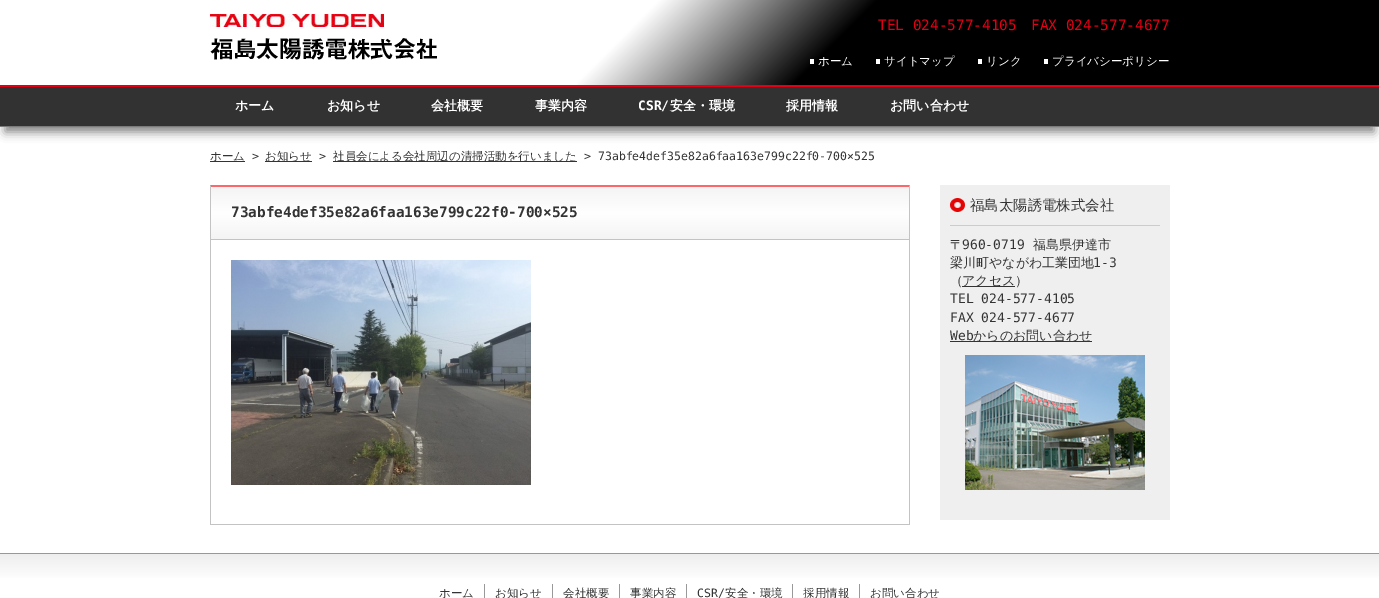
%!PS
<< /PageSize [1379 598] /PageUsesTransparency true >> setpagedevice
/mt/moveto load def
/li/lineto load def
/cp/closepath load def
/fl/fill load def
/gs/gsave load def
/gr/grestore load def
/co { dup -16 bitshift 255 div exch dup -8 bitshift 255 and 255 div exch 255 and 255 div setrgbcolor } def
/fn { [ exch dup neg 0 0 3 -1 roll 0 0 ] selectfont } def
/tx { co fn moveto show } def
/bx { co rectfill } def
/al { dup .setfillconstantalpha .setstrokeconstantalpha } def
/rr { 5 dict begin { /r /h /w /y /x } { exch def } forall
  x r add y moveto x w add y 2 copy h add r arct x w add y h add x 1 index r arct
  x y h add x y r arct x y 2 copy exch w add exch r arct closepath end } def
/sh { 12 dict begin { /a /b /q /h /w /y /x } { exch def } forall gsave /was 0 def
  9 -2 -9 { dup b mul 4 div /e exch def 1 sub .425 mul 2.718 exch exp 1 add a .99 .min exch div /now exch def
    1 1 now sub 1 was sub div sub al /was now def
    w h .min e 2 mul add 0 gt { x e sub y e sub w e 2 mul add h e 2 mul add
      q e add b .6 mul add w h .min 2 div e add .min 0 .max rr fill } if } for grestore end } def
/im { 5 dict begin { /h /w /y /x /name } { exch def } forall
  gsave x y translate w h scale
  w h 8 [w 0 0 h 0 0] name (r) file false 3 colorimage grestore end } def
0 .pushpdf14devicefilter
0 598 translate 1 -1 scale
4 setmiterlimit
0 0 1379 598 16#FFFFFF bx
gs 577 0 mt 1379 0 li 1379 85 li 577 85 li cp clip newpath
<< /ShadingType 2 /ColorSpace /DeviceRGB /Coords [324 -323 1056 408] /Extend [true true] /Function << /FunctionType 3 /Domain [0 1] /Functions [<< /FunctionType 2 /Domain [0 1] /C0 [1 1 1] /C1 [1 1 1] /N 1 >> << /FunctionType 2 /Domain [0 1] /C0 [1 1 1] /C1 [0 0 0] /N 1 >> << /FunctionType 2 /Domain [0 1] /C0 [0 0 0] /C1 [0 0 0] /N 1 >>] /Bounds [.45 .6] /Encode [0 1 0 1 0 1] >> >> shfill gr
0 85 1379 2 16#E30015 bx
(media/1.raw) 210 14 227 46 im
810 59 4 5 16#FFFFFF bx
876 59 4 5 16#FFFFFF bx
978 59 4 5 16#FFFFFF bx
1044 59 4 5 16#FFFFFF bx
16#000000 co
5 102 1369 30 0 5 .5 sh
0 87 1379 39 16#323232 bx
0 126 1379 1 16#7B7B7B bx
210 161 35 1 16#333333 bx
265 161 47 1 16#333333 bx
333 161 244 1 16#333333 bx
16#FB676A co
210 185 mt 910 185 li 909 187 li 211 187 li cp fl
16#C3C3C3 co
910 185 mt 910 525 li 909 524 li 909 187 li cp fl
210 524 700 1 16#C3C3C3 bx
210 525 mt 210 185 li 211 187 li 211 524 li cp fl
gs 211 187 mt 909 187 li 909 239 li 211 239 li cp clip newpath
<< /ShadingType 2 /ColorSpace /DeviceRGB /Coords [560 187 560 239] /Extend [true true] /Function << /FunctionType 3 /Domain [0 1] /Functions [<< /FunctionType 2 /Domain [0 1] /C0 [.957 .957 .957] /C1 [1 1 1] /N 1 >> << /FunctionType 2 /Domain [0 1] /C0 [1 1 1] /C1 [.957 .957 .957] /N 1 >>] /Bounds [.5] /Encode [0 1 0 1] >> >> shfill gr
211 239 698 1 16#C3C3C3 bx
(media/2.raw) 231 260 300 225 im
940 185 230 335 16#EFEFEF bx
(media/3.raw) 950 198 15 14 im
950 225 210 1 16#CCCCCC bx
962 286 53 1 16#333333 bx
950 341 142 1 16#333333 bx
(media/4.raw) 965 355 180 135 im
gs 0 554 mt 1379 554 li 1379 578 li 0 578 li cp clip newpath
<< /ShadingType 2 /ColorSpace /DeviceRGB /Coords [690 554 690 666] /Extend [true true] /Function << /FunctionType 3 /Domain [0 1] /Functions [<< /FunctionType 2 /Domain [0 1] /C0 [.933 .933 .933] /C1 [1 1 1] /N 1 >> << /FunctionType 2 /Domain [0 1] /C0 [1 1 1] /C1 [1 1 1] /N 1 >> << /FunctionType 2 /Domain [0 1] /C0 [1 1 1] /C1 [.933 .933 .933] /N 1 >>] /Bounds [.25 .75] /Encode [0 1 0 1 0 1] >> >> shfill gr
0 553 1379 1 16#94999F bx
484 584 1 14 16#999999 bx
552 584 1 14 16#999999 bx
619 584 1 14 16#999999 bx
686 584 1 14 16#999999 bx
792 584 1 14 16#999999 bx
859 584 1 14 16#999999 bx
(TEL 024-577-4105) 878 30 /DejaVuSansMono-Regular 14.4 16#E30015 tx
(FAX 024-577-4677) 1031 30 /DejaVuSansMono-Regular 14.4 16#E30015 tx
(ホーム) 818 65 /WenQuanYiZenHei-Medium 11.5 16#FFFFFF tx
(サイトマップ) 884 65 /WenQuanYiZenHei-Medium 11.5 16#FFFFFF tx
(リンク) 986 65 /WenQuanYiZenHei-Medium 11.5 16#FFFFFF tx
(プライバシーポリシー) 1052 65 /WenQuanYiZenHei-Medium 11.5 16#FFFFFF tx
(ホーム) 235 110 /WenQuanYiZenHei-Bold 13 16#FFFFFF tx
(お知らせ) 327 110 /WenQuanYiZenHei-Bold 13 16#FFFFFF tx
(会社概要) 431 110 /WenQuanYiZenHei-Bold 13 16#FFFFFF tx
(事業内容) 535 110 /WenQuanYiZenHei-Bold 13 16#FFFFFF tx
(CSR/) 638 110 /DejaVuSansMono-Bold 13 16#FFFFFF tx
(安全・環境) 670 110 /WenQuanYiZenHei-Bold 13 16#FFFFFF tx
(採用情報) 786 110 /WenQuanYiZenHei-Bold 13 16#FFFFFF tx
(お問い合わせ) 890 110 /WenQuanYiZenHei-Bold 13 16#FFFFFF tx
(ホーム) 210 160 /WenQuanYiZenHei-Medium 11.5 16#333333 tx
(>) 252 160 /DejaVuSansMono-Regular 11.5 16#333333 tx
(お知らせ) 265 160 /WenQuanYiZenHei-Medium 11.5 16#333333 tx
(>) 319 160 /DejaVuSansMono-Regular 11.5 16#333333 tx
(社員会による会社周辺の清掃活動を行いました) 333 160 /WenQuanYiZenHei-Medium 11.5 16#333333 tx
(> 73abfe4def35e82a6faa163e799c22f0-700×525) 584 160 /DejaVuSansMono-Regular 11.5 16#333333 tx
(73abfe4def35e82a6faa163e799c22f0-700×525) 231 217 /DejaVuSansMono-Bold 14.4 16#333333 tx
(福島太陽誘電株式会社) 970 210 /WenQuanYiZenHei-Medium 14.4 16#333333 tx
(〒) 950 249 /WenQuanYiZenHei-Medium 13 16#333333 tx
(960-0719) 962 249 /DejaVuSansMono-Regular 13 16#333333 tx
(福島県伊達市) 1033 249 /WenQuanYiZenHei-Medium 13 16#333333 tx
(梁川町やながわ工業団地) 950 267 /WenQuanYiZenHei-Medium 13 16#333333 tx
(1-3) 1093 267 /DejaVuSansMono-Regular 13 16#333333 tx
(（) 950 285 /WenQuanYiZenHei-Medium 13 16#333333 tx
(アクセス）) 962 285 /WenQuanYiZenHei-Medium 13 16#333333 tx
(TEL 024-577-4105) 950 303 /DejaVuSansMono-Regular 13 16#333333 tx
(FAX 024-577-4677) 950 322 /DejaVuSansMono-Regular 13 16#333333 tx
(Web) 950 340 /DejaVuSansMono-Regular 13 16#333333 tx
(からのお問い合わせ) 973 340 /WenQuanYiZenHei-Medium 13 16#333333 tx
(ホーム) 439 597 /WenQuanYiZenHei-Medium 11.5 16#333333 tx
(お知らせ) 495 597 /WenQuanYiZenHei-Medium 11.5 16#333333 tx
(会社概要) 563 597 /WenQuanYiZenHei-Medium 11.5 16#333333 tx
(事業内容) 630 597 /WenQuanYiZenHei-Medium 11.5 16#333333 tx
(CSR/) 697 597 /DejaVuSansMono-Regular 11.5 16#333333 tx
(安全・環境) 725 597 /WenQuanYiZenHei-Medium 11.5 16#333333 tx
(採用情報) 803 597 /WenQuanYiZenHei-Medium 11.5 16#333333 tx
(お問い合わせ) 870 597 /WenQuanYiZenHei-Medium 11.5 16#333333 tx
.poppdf14devicefilter showpage
